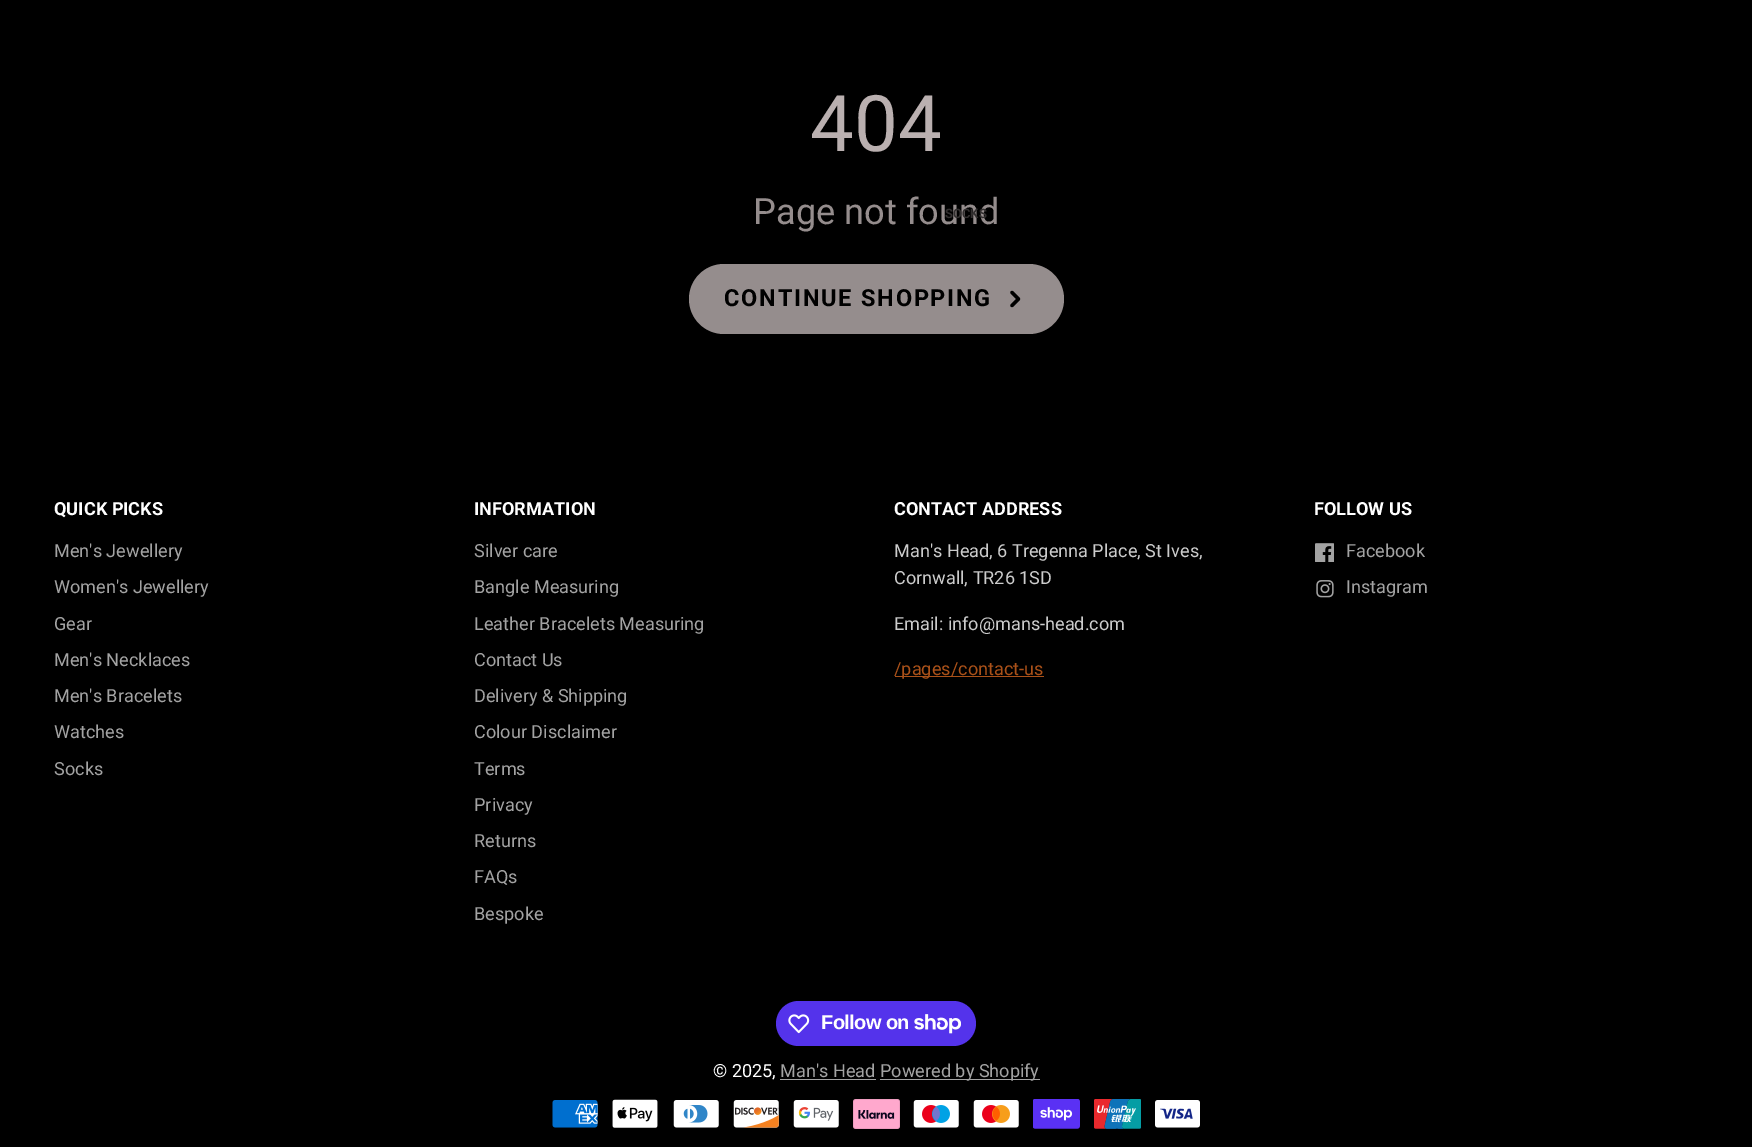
%!PS
<< /PageSize [1752 1147] >> setpagedevice
/mt/moveto load def
/li/lineto load def
/fl/fill load def
/st/stroke load def
/lw/setlinewidth load def
/co { dup -16 bitshift 255 div exch dup -8 bitshift 255 and 255 div exch 255 and 255 div setrgbcolor } def
/fn { [ exch dup neg 0 0 3 -1 roll 0 0 ] selectfont } def
/tx { co fn moveto show } def
/bx { co rectfill } def
/rr { 5 dict begin { /r /h /w /y /x } { exch def } forall
  x r add y moveto x w add y 2 copy h add r arct x w add y h add x 1 index r arct
  x y h add x y r arct x y 2 copy exch w add exch r arct closepath end } def
/im { 5 dict begin { /h /w /y /x /name } { exch def } forall
  gsave x y translate w h scale
  w h 8 [w 0 0 h 0 0] name (r) file false 3 colorimage grestore end } def
0 1147 translate 1 -1 scale
4 setmiterlimit
0 0 1752 1147 16#000000 bx
16#958D8D co
689 264 375 70 35 rr fl
16#000000 co
3.2 lw
1 setlinecap
1 setlinejoin
1012 305.5 mt 1018.5 299 li 1012 292.5 li st
895 676 149 1 16#AA5119 bx
(media/1.raw) 1315 543 19 19 im
(media/2.raw) 1316 580 18 18 im
16#5433EB co
776 1001 200 45 22.5 rr fl
(media/3.raw) 788 1014 22 20 im
(media/4.raw) 914 1014 47 20 im
780 1079 96 1 16#A3A3A3 bx
880 1079 160 1 16#A3A3A3 bx
(media/5.raw) 552 1100 46 28 im
(media/6.raw) 612 1099 46 29 im
(media/7.raw) 673 1100 46 28 im
(media/8.raw) 733 1100 46 28 im
(media/9.raw) 793 1100 46 28 im
(media/10.raw) 853 1099 47 30 im
(media/11.raw) 913 1100 46 28 im
(media/12.raw) 973 1100 46 28 im
(media/13.raw) 1033 1099 47 30 im
(media/14.raw) 1094 1099 47 30 im
(media/15.raw) 1155 1100 45 28 im
(404) 810 151 /Roboto-Regular 78 16#BAB0B0 tx
(Page not found) 753 224 /Roboto-Regular 36.25 16#958D8D tx
/Roboto-Bold 23.5 fn
16#000000 co
724 306 mt 1.8 0 (CONTINUE SHOPPING) ashow
(SOCKS) 945 218 /Roboto-Bold 13 16#322F2F tx
(QUICK PICKS) 54 515 /Roboto-Bold 18.1 16#FFFFFF tx
(Men's Jewellery) 54 557 /Roboto-Regular 18.1 16#A3A3A3 tx
(Women's Jewellery) 54 593 /Roboto-Regular 18.1 16#A3A3A3 tx
(Gear) 54 630 /Roboto-Regular 18.1 16#A3A3A3 tx
(Men's Necklaces) 54 666 /Roboto-Regular 18.1 16#A3A3A3 tx
(Men's Bracelets) 54 702 /Roboto-Regular 18.1 16#A3A3A3 tx
(Watches) 54 738 /Roboto-Regular 18.1 16#A3A3A3 tx
(Socks) 54 775 /Roboto-Regular 18.1 16#A3A3A3 tx
(INFORMATION) 474 515 /Roboto-Bold 18.1 16#FFFFFF tx
(Silver care) 474 557 /Roboto-Regular 18.1 16#A3A3A3 tx
(Bangle Measuring) 474 593 /Roboto-Regular 18.1 16#A3A3A3 tx
(Leather Bracelets Measuring) 474 630 /Roboto-Regular 18.1 16#A3A3A3 tx
(Contact Us) 474 666 /Roboto-Regular 18.1 16#A3A3A3 tx
(Delivery & Shipping) 474 702 /Roboto-Regular 18.1 16#A3A3A3 tx
(Colour Disclaimer) 474 738 /Roboto-Regular 18.1 16#A3A3A3 tx
(Terms) 474 775 /Roboto-Regular 18.1 16#A3A3A3 tx
(Privacy) 474 811 /Roboto-Regular 18.1 16#A3A3A3 tx
(Returns) 474 847 /Roboto-Regular 18.1 16#A3A3A3 tx
(FAQs) 474 883 /Roboto-Regular 18.1 16#A3A3A3 tx
(Bespoke) 474 920 /Roboto-Regular 18.1 16#A3A3A3 tx
(CONTACT ADDRESS) 894 515 /Roboto-Bold 18.1 16#FFFFFF tx
(Man's Head, 6 Tregenna Place, St Ives,) 894 557 /Roboto-Regular 18.1 16#CCCCCC tx
(Cornwall, TR26 1SD) 894 584 /Roboto-Regular 18.1 16#CCCCCC tx
(Email: info@mans-head.com) 894 630 /Roboto-Regular 18.1 16#CCCCCC tx
(/pages/contact-us) 894 675 /Roboto-Regular 18.1 16#AA5119 tx
(FOLLOW US) 1314 515 /Roboto-Bold 18.1 16#FFFFFF tx
(Facebook) 1346 557 /Roboto-Regular 18.1 16#A3A3A3 tx
(Instagram) 1346 593 /Roboto-Regular 18.1 16#A3A3A3 tx
/LiberationSans-Bold 20 fn
16#FFFFFF co
821 1029 mt -.6 0 (Follow on) ashow
(© 2025,) 713 1077 /Roboto-Regular 18.1 16#FFFFFF tx
(Man's Head) 780 1077 /Roboto-Regular 18.1 16#A3A3A3 tx
(Powered by Shopify) 880 1077 /Roboto-Regular 18.1 16#A3A3A3 tx
showpage
